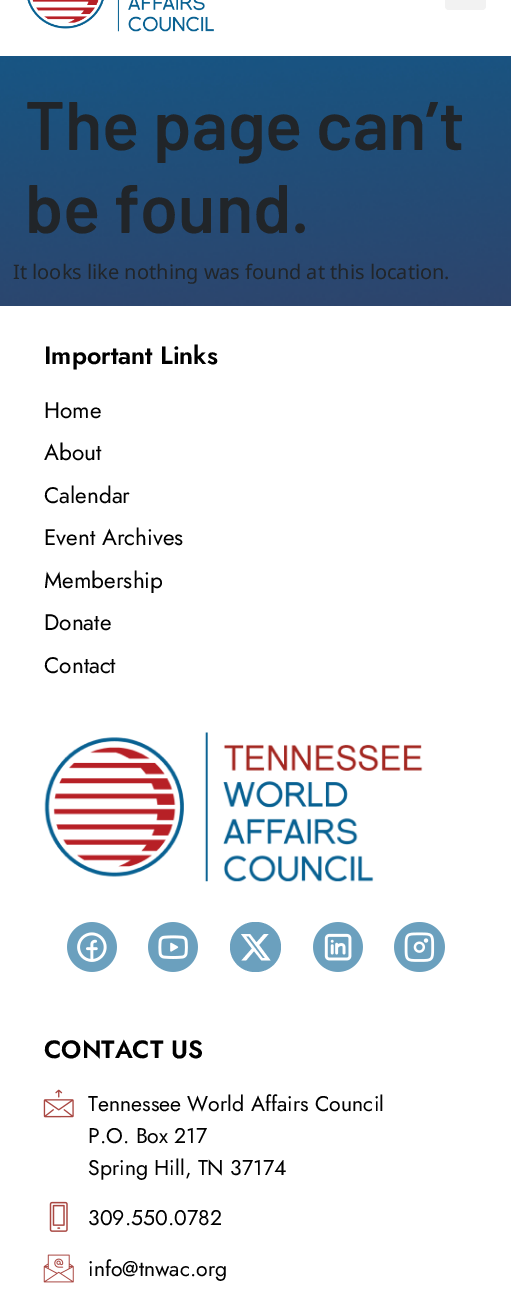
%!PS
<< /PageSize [511 1295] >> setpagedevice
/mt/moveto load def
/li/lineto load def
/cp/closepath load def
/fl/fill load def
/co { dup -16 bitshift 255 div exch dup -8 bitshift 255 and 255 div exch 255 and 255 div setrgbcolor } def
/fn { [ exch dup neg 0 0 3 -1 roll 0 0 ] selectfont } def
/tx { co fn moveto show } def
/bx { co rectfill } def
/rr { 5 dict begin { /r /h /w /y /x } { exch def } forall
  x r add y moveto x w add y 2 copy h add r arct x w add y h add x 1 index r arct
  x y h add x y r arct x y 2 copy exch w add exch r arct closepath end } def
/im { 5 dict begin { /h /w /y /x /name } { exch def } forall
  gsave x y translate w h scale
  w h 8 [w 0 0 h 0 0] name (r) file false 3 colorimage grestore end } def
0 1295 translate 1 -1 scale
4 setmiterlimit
0 0 511 1295 16#FFFFFF bx
(media/1.raw) 0 56 511 250 im
(media/2.raw) 27 0 187 32 im
16#F2F2F2 co
445 -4 41 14 4 rr fl
(media/3.raw) 44 732 379 150 im
(media/4.raw) 67 922 50 50 im
(media/5.raw) 148 922 50 50 im
16#6BA0BE co
230 922 51 50 25 rr fl
16#FFFFFF co
264 934 mt 268.5 934 li 259 945 li 270.5 960.5 li 261.5 960.5 li 254 951 li 246 960.5 li 241.5 960.5 li 252 948.5 li 241 934 li 250 934 li 256.5 942.5 li cp 262.5 958 mt 265 958 li 249 936.5 li 246 936.5 li cp fl
(media/6.raw) 313 922 50 50 im
(media/7.raw) 394 922 51 50 im
(media/8.raw) 43 1089 31 29 im
(media/9.raw) 49 1201 19 31 im
(media/10.raw) 43 1254 31 29 im
(The page can’t) 25 150 /Barlow-SemiBold 68.75 16#212529 tx
(be found.) 25 233 /Barlow-SemiBold 68.75 16#212529 tx
(It looks like nothing was found at this location.) 13 279 /NotoSans-Regular 20 16#212529 tx
(Important Links) 44 364 /Jost-SemiBold 25 16#000000 tx
(Home) 44 418 /Jost-Regular 22.5 16#000000 tx
(About) 44 460 /Jost-Regular 22.5 16#000000 tx
(Calendar) 44 503 /Jost-Regular 22.5 16#000000 tx
(Event Archives) 44 545 /Jost-Regular 22.5 16#000000 tx
(Membership) 44 588 /Jost-Regular 22.5 16#000000 tx
(Donate) 44 630 /Jost-Regular 22.5 16#000000 tx
(Contact) 44 673 /Jost-Regular 22.5 16#000000 tx
(CONTACT US) 44 1058 /Jost-SemiBold 25 16#000000 tx
(Tennessee World Affairs Council) 88 1111 /Jost-Regular 21.25 16#000000 tx
(P.O. Box 217) 88 1143 /Jost-Regular 21.25 16#000000 tx
(Spring Hill, TN 37174) 88 1175 /Jost-Regular 21.25 16#000000 tx
(309.550.0782) 88 1225 /Jost-Regular 21.25 16#000000 tx
(info@tnwac.org) 88 1276 /Jost-Regular 21.25 16#000000 tx
showpage
